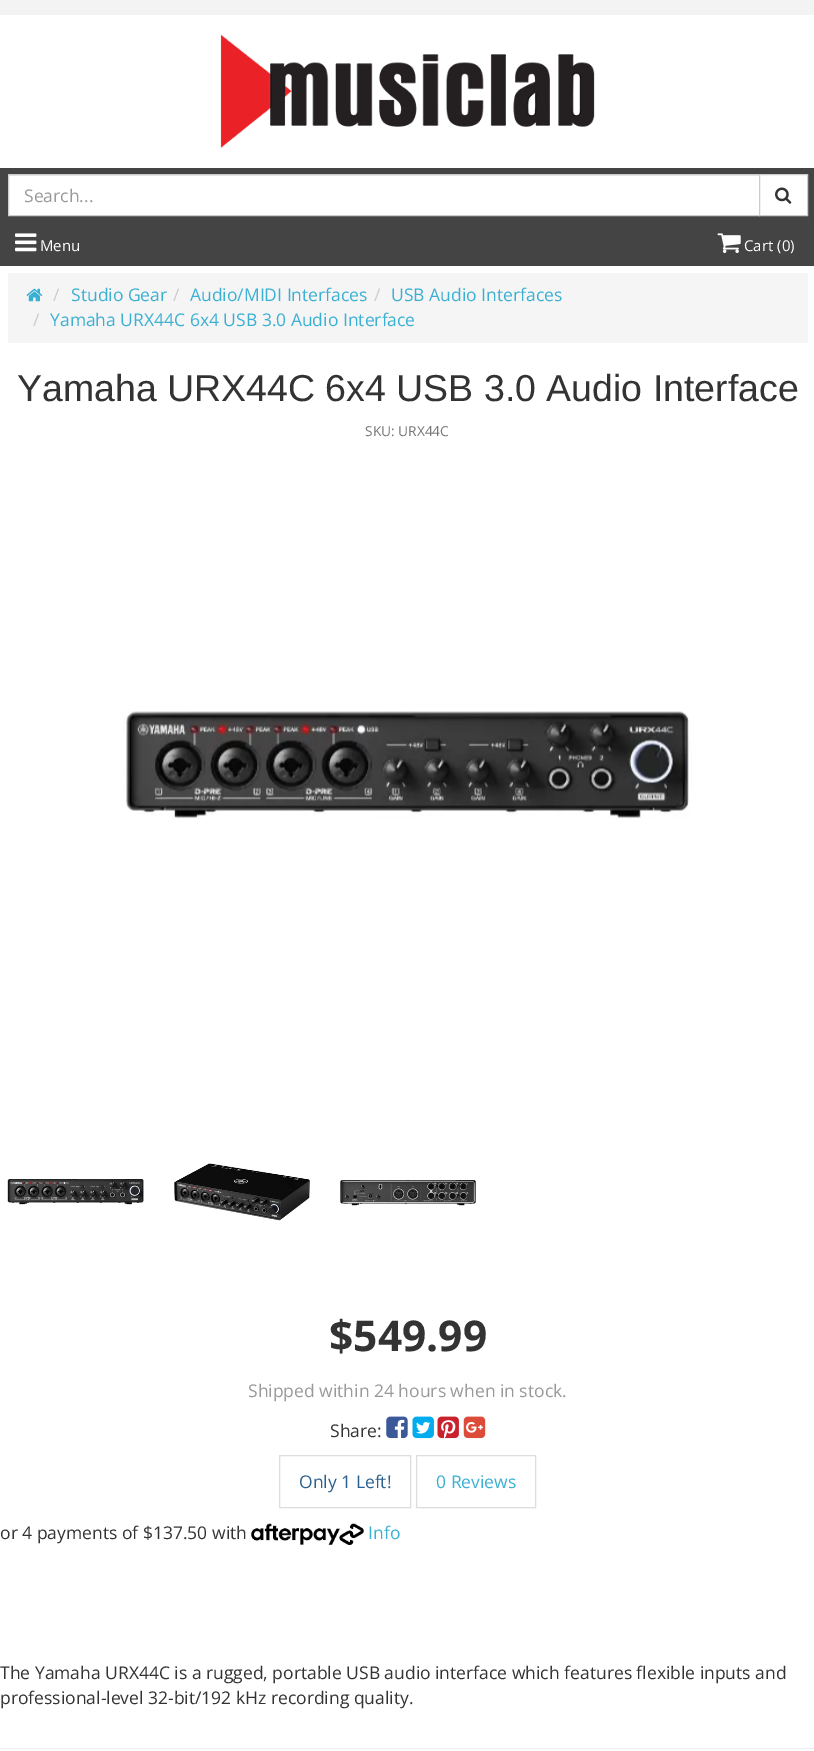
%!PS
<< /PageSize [814 1751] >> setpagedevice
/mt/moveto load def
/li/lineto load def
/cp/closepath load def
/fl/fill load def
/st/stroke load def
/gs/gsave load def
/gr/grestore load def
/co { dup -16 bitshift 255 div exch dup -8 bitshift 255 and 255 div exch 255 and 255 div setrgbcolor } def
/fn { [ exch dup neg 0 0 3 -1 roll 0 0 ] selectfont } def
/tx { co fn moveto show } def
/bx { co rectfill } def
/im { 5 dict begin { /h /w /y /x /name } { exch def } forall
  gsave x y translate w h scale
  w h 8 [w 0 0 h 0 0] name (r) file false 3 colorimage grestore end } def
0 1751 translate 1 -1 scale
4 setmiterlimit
0 0 814 1751 16#FFFFFF bx
0 0 814 15 16#F3F3F3 bx
(media/1.raw) 220 35 375 113 im
0 168 814 98 16#444444 bx
9 176 750 39 16#FFFFFF bx
9 175 750 1 16#ECECEC bx
16#CCCCCC co
8.5 174.5 751 41 rectstroke
16#FFFFFF co
759.5 174.5 mt 807.5 174.5 li 807.5 215.5 li 759.5 215.5 li cp gs fl gr
16#CCCCCC co
st
(media/2.raw) 775 187 17 17 im
(media/3.raw) 15 233 22 19 im
(media/4.raw) 717 233 24 20 im
8 273 800 70 16#F5F5F5 bx
(media/5.raw) 26 288 17 14 im
(media/6.raw) 123 711 569 108 im
(media/7.raw) 7 1179 137 26 im
(media/8.raw) 174 1163 136 58 im
(media/9.raw) 340 1180 136 26 im
(media/10.raw) 386 1416 22 23 im
(media/11.raw) 412 1416 22 23 im
(media/12.raw) 437 1416 22 23 im
(media/13.raw) 463 1416 23 23 im
16#DDDDDD co
279.5 1455.5 131 52 rectstroke
416.5 1455.5 119 52 rectstroke
(media/14.raw) 251 1523 113 22 im
0 1748 814 1 16#EEEEEE bx
(Search...) 24 202 /OpenSans-Regular 17.5 16#999999 tx
(Menu) 40 251 /OpenSans-Regular 15 16#FFFFFF tx
(Cart \(0\)) 744 251 /OpenSans-Regular 15 16#FFFFFF tx
(/) 53 301 /OpenSans-Regular 17.5 16#CCCCCC tx
(Studio Gear) 71 301 /OpenSans-Regular 17.5 16#3AB0D3 tx
(/) 173 301 /OpenSans-Regular 17.5 16#CCCCCC tx
(Audio/MIDI Interfaces) 190 301 /OpenSans-Regular 17.5 16#3AB0D3 tx
(/) 374 301 /OpenSans-Regular 17.5 16#CCCCCC tx
(USB Audio Interfaces) 391 301 /OpenSans-Regular 17.5 16#3AB0D3 tx
(/) 33 326 /OpenSans-Regular 17.5 16#CCCCCC tx
(Yamaha URX44C 6x4 USB 3.0 Audio Interface) 50 326 /OpenSans-Regular 17.5 16#3AB0D3 tx
(Yamaha URX44C 6x4 USB 3.0 Audio Interface) 17 401 /LiberationSans-Regular 37.5 16#333333 tx
(SKU: URX44C) 365 436 /OpenSans-Regular 13.75 16#777777 tx
($549.99) 329 1351 /OpenSans-Bold 42.5 16#333333 tx
(Shipped within 24 hours when in stock.) 248 1397 /OpenSans-Regular 17.5 16#999999 tx
(Share:) 330 1437 /OpenSans-Regular 17.5 16#333333 tx
(Only 1 Left!) 299 1488 /OpenSans-Regular 17.5 16#2B618E tx
(0 Reviews) 436 1488 /OpenSans-Regular 17.5 16#3AB0D3 tx
(or 4 payments of $137.50 with) 0 1539 /OpenSans-Regular 17.5 16#333333 tx
(Info) 368 1539 /OpenSans-Regular 17.5 16#3AB0D3 tx
(The Yamaha URX44C is a rugged, portable USB audio interface which features flexible inputs and) 0 1679 /OpenSans-Regular 17.5 16#333333 tx
(professional-level 32-bit/192 kHz recording quality.) 0 1704 /OpenSans-Regular 17.5 16#333333 tx
showpage
